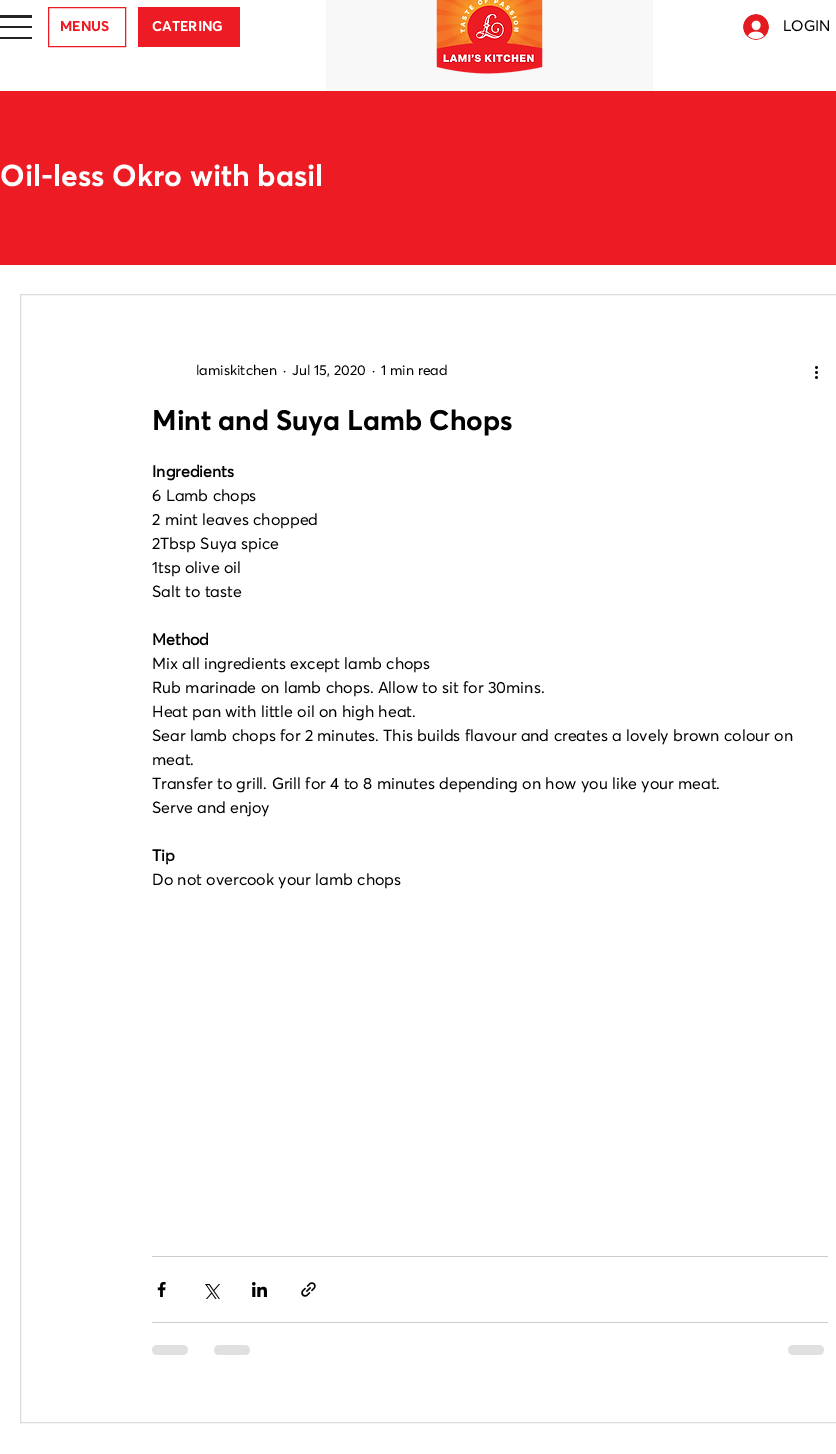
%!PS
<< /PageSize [836 1454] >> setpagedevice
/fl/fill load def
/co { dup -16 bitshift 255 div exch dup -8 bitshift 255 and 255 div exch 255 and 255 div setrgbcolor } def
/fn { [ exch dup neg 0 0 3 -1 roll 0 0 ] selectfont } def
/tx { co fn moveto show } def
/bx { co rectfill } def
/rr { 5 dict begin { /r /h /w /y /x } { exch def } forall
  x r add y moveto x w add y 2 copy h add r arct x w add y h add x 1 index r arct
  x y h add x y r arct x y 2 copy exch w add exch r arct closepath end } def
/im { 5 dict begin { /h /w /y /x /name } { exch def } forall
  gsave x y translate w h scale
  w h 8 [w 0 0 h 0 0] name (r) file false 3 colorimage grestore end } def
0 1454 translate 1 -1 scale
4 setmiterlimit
0 0 836 1454 16#FFFFFF bx
0 15 32 3 16#242323 bx
0 26 32 2 16#242323 bx
0 37 32 2 16#242323 bx
16#ED1C24 co
48.5 7.5 77 39 rectstroke
138 7 102 40 16#ED1C24 bx
326 0 327 91 16#F8F8F8 bx
(media/1.raw) 436 0 107 74 im
(media/2.raw) 743 14 26 26 im
0 91 836 174 16#ED1C24 bx
16#DBDBDB co
20.5 294.5 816 1128 rectstroke
(media/3.raw) 815 366 3 13 im
152 1256 676 1 16#CCCCCC bx
(media/4.raw) 157 1282 9 15 im
(media/5.raw) 205 1284 15 15 im
(media/6.raw) 252 1282 15 15 im
(media/7.raw) 301 1282 15 15 im
152 1322 676 1 16#CCCCCC bx
16#E0E0E0 co
152 1345 36 10 5 rr fl
214 1345 36 10 5 rr fl
788 1345 36 10 5 rr fl
(MENUS) 60 31 /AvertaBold-Bold 14 16#ED1C24 tx
(CATERING) 152 31 /AvertaBold-Bold 14 16#FFFFFF tx
(LOGIN) 783 31 /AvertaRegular-Regular 15 16#000000 tx
(Oil-less Okro with basil) 0 186 /AvertaBold-Bold 30 16#FFFFFF tx
(lamiskitchen) 196 375 /AvertaRegular-Regular 14 16#000000 tx
(·) 283 375 /AvertaRegular-Regular 14 16#000000 tx
(Jul 15, 2020) 292 375 /AvertaRegular-Regular 14 16#000000 tx
(·) 372 375 /AvertaRegular-Regular 14 16#000000 tx
(1 min read) 381 375 /AvertaRegular-Regular 14 16#000000 tx
(Mint and Suya Lamb Chops) 152 430 /AvertaBold-Bold 28 16#000000 tx
(Ingredients) 152 477 /AvertaRegular-Bold 16 16#000000 tx
(6 Lamb chops) 152 501 /AvertaRegular-Regular 16 16#000000 tx
(2 mint leaves chopped) 152 525 /AvertaRegular-Regular 16 16#000000 tx
(2Tbsp Suya spice) 152 549 /AvertaRegular-Regular 16 16#000000 tx
(1tsp olive oil) 152 573 /AvertaRegular-Regular 16 16#000000 tx
(Salt to taste) 152 597 /AvertaRegular-Regular 16 16#000000 tx
(Method) 152 645 /AvertaRegular-Bold 16 16#000000 tx
(Mix all ingredients except lamb chops) 152 669 /AvertaRegular-Regular 16 16#000000 tx
(Rub marinade on lamb chops. Allow to sit for 30mins.) 152 693 /AvertaRegular-Regular 16 16#000000 tx
(Heat pan with little oil on high heat.) 152 717 /AvertaRegular-Regular 16 16#000000 tx
(Sear lamb chops for 2 minutes. This builds flavour and creates a lovely brown colour on) 152 741 /AvertaRegular-Regular 16 16#000000 tx
(meat.) 152 765 /AvertaRegular-Regular 16 16#000000 tx
(Transfer to grill. Grill for 4 to 8 minutes depending on how you like your meat.) 152 789 /AvertaRegular-Regular 16 16#000000 tx
(Serve and enjoy) 152 813 /AvertaRegular-Regular 16 16#000000 tx
(Tip) 152 861 /AvertaRegular-Bold 16 16#000000 tx
(Do not overcook your lamb chops) 152 885 /AvertaRegular-Regular 16 16#000000 tx
showpage
